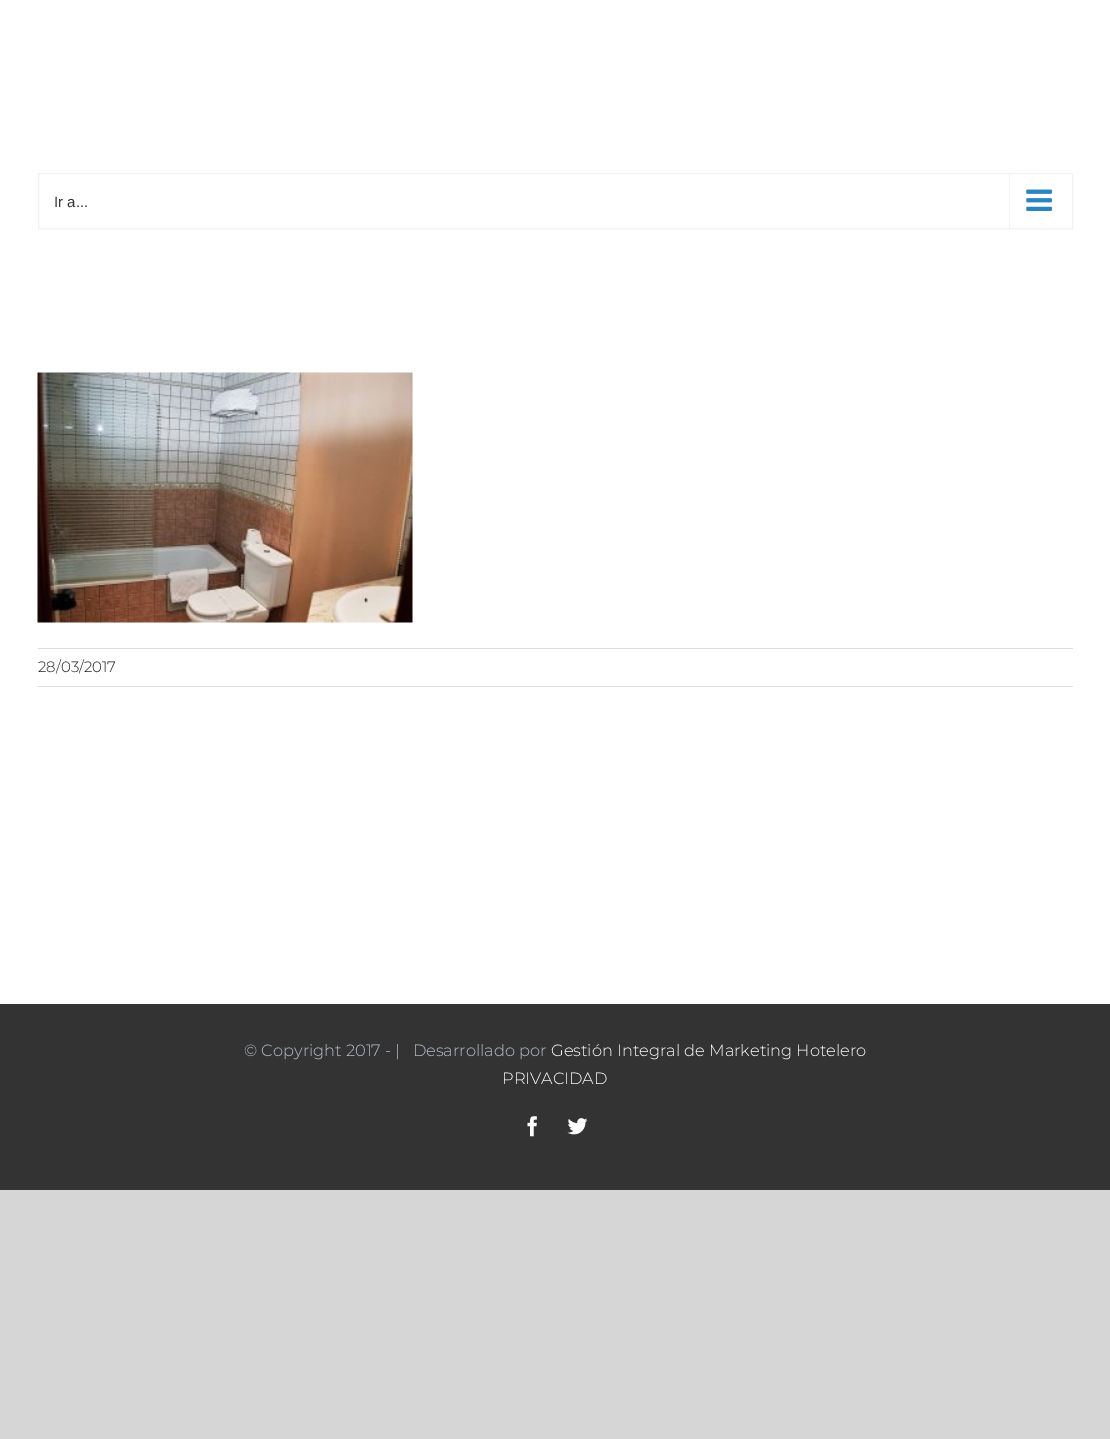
%!PS
<< /PageSize [1110 1439] >> setpagedevice
/co { dup -16 bitshift 255 div exch dup -8 bitshift 255 and 255 div exch 255 and 255 div setrgbcolor } def
/fn { [ exch dup neg 0 0 3 -1 roll 0 0 ] selectfont } def
/tx { co fn moveto show } def
/bx { co rectfill } def
/im { 5 dict begin { /h /w /y /x /name } { exch def } forall
  gsave x y translate w h scale
  w h 8 [w 0 0 h 0 0] name (r) file false 3 colorimage grestore end } def
0 1439 translate 1 -1 scale
4 setmiterlimit
0 0 1110 1439 16#D7D6D6 bx
0 0 1110 1004 16#FFFFFF bx
16#F2F2F2 co
38.5 173.5 1034 55 rectstroke
1009 174 1 54 16#F2F2F2 bx
(media/1.raw) 1026 189 26 22 im
(media/2.raw) 37 372 376 251 im
38 648 1035 1 16#E0DEDE bx
38 686 1035 1 16#E0DEDE bx
0 1004 1110 186 16#333333 bx
(media/3.raw) 527 1116 10 21 im
(media/4.raw) 567 1118 21 17 im
(Ir a...) 54 207 /LiberationSans-Regular 15 16#333333 tx
(28/03/2017) 38 672 /Montserrat-Light 15 16#222222 tx
(© Copyright 2017 - |   Desarrollado por) 244 1056 /Montserrat-Light 16.25 16#B6C0CE tx
(Gestión Integral de Marketing Hotelero) 551 1056 /Montserrat-Light 16.25 16#FFFFFF tx
(PRIVACIDAD) 502 1084 /Montserrat-Light 16.25 16#FFFFFF tx
showpage
